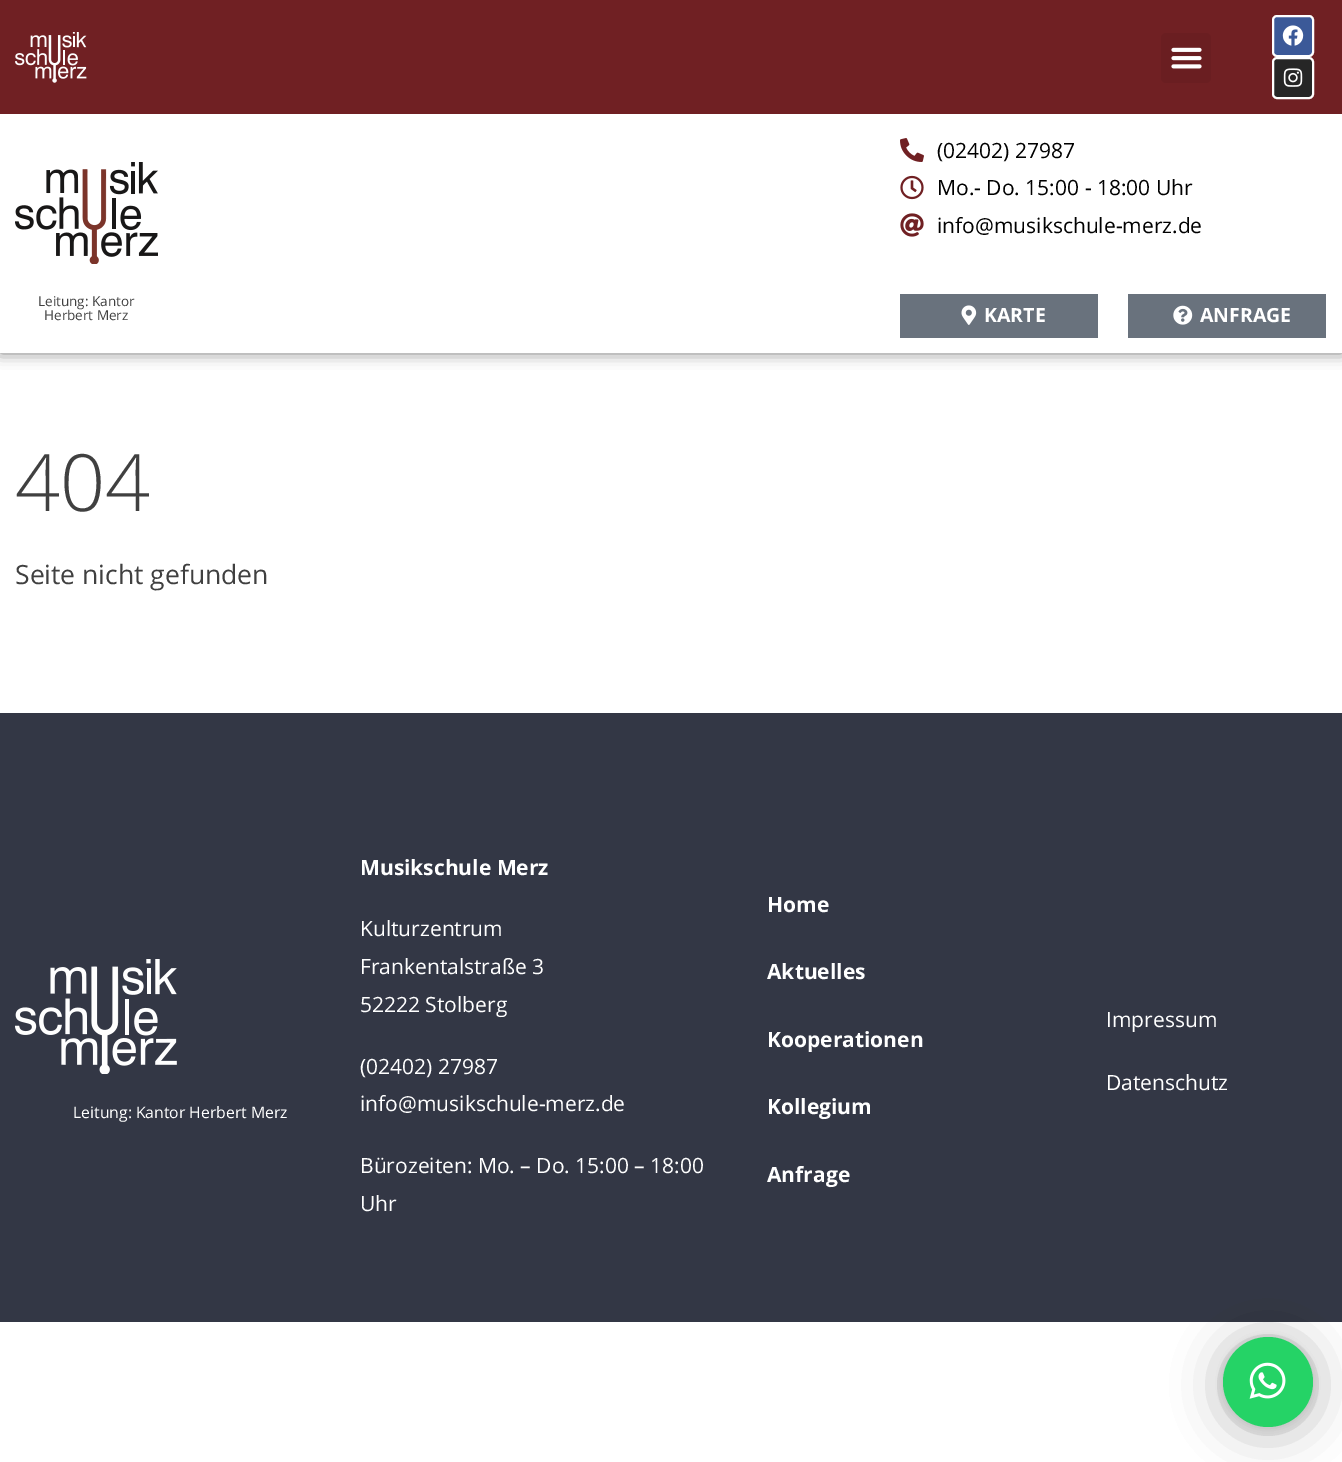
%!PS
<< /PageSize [1342 1462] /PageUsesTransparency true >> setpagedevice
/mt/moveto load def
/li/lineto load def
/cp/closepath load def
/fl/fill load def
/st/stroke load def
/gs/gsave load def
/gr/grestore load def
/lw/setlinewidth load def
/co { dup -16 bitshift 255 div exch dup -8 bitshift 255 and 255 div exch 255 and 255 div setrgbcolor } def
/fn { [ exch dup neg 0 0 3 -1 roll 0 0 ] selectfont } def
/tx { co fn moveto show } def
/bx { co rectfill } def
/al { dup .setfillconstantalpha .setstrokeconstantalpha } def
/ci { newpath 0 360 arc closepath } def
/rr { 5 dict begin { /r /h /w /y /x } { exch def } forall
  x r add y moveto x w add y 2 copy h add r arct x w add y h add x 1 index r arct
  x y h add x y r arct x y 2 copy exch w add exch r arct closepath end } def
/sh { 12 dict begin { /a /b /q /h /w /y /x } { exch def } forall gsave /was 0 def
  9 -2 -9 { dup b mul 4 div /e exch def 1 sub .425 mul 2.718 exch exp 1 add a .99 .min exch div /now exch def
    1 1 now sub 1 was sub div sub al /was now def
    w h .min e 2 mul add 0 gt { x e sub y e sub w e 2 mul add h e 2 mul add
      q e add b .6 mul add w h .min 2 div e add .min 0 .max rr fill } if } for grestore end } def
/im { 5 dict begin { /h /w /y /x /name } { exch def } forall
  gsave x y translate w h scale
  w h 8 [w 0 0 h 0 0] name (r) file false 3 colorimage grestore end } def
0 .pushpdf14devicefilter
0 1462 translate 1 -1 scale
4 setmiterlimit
0 0 1342 1462 16#FFFFFF bx
gs
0 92 mt 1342 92 li 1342 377 li 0 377 li cp 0 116 mt 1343 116 li 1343 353 li 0 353 li cp eoclip newpath
16#000000 co
0 116 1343 237 0 7.5 .5 sh
gr
0 0 1342 114 16#702023 bx
0 114 1342 2 16#FFFFFF bx
(media/1.raw) 15 32 72 51 im
16#6A1E21 co
1161 33 50 50 5 rr fl
(media/2.raw) 1171 47 31 22 im
16#3B5998 co
1273 16 40 40 4 rr gs fl gr
16#FFFFFF co
2 lw
st
(media/3.raw) 1282 25 22 21 im
16#262626 co
1273 58 40 40 4 rr gs fl gr
16#FFFFFF co
st
(media/4.raw) 1283 68 20 19 im
(media/5.raw) 15 162 143 102 im
(media/6.raw) 900 138 24 24 im
(media/7.raw) 900 175 24 25 im
(media/8.raw) 900 213 24 24 im
900 294 198 44 16#69727D bx
(media/9.raw) 961 305 16 20 im
1128 294 198 44 16#69727D bx
(media/10.raw) 1173 305 20 20 im
0 713 1342 609 16#333745 bx
(media/11.raw) 15 959 162 115 im
16#000000 co
1223 1340 90 90 45 24 .16 sh
1223 1338 90 90 45 4.5 .06 sh
1223 1340 90 90 45 24 .16 sh
1223 1338 90 90 45 4.5 .06 sh
16#25D366 co
1268 1382 45 ci fl
(media/12.raw) 1249 1362 37 37 im
(Leitung: Kantor) 38 306 /OpenSans-Regular 13.5 16#404040 tx
(Herbert Merz) 44 320 /OpenSans-Regular 13.5 16#404040 tx
(\(02402\) 27987) 937 158 /OpenSans-Regular 21 16#000000 tx
(Mo.- Do. 15:00 - 18:00 Uhr) 937 195 /OpenSans-Regular 21 16#000000 tx
(info@musikschule-merz.de) 937 233 /OpenSans-Regular 21 16#000000 tx
(KARTE) 984 322 /OpenSans-Bold 19.5 16#FFFFFF tx
(ANFRAGE) 1200 322 /OpenSans-Bold 19.5 16#FFFFFF tx
(404) 15 511 /OpenSans-Light 79 16#404040 tx
(Seite nicht gefunden) 15 584 /OpenSans-Regular 26.5 16#404040 tx
(Musikschule Merz) 360 875 /OpenSans-Bold 21 16#FFFFFF tx
(Kulturzentrum) 360 936 /OpenSans-Regular 21 16#FFFFFF tx
(Frankentalstraße 3) 360 974 /OpenSans-Regular 21 16#FFFFFF tx
(52222 Stolberg) 360 1012 /OpenSans-Regular 21 16#FFFFFF tx
(\(02402\) 27987) 360 1074 /OpenSans-Regular 21 16#FFFFFF tx
(info@musikschule-merz.de) 360 1111 /OpenSans-Regular 21 16#FFFFFF tx
(Bürozeiten: Mo. – Do. 15:00 – 18:00) 360 1173 /OpenSans-Regular 21 16#FFFFFF tx
(Uhr) 360 1211 /OpenSans-Regular 21 16#FFFFFF tx
(Home) 767 912 /OpenSans-Bold 21 16#FFFFFF tx
(Aktuelles) 767 979 /OpenSans-Bold 21 16#FFFFFF tx
(Kooperationen) 767 1047 /OpenSans-Bold 21 16#FFFFFF tx
(Kollegium) 767 1114 /OpenSans-Bold 21 16#FFFFFF tx
(Anfrage) 767 1182 /OpenSans-Bold 21 16#FFFFFF tx
(Impressum) 1106 1027 /OpenSans-Regular 21 16#FFFFFF tx
(Datenschutz) 1106 1090 /OpenSans-Regular 21 16#FFFFFF tx
(Leitung: Kantor Herbert Merz) 73 1118 /OpenSans-Regular 15.75 16#FFFFFF tx
.poppdf14devicefilter showpage
